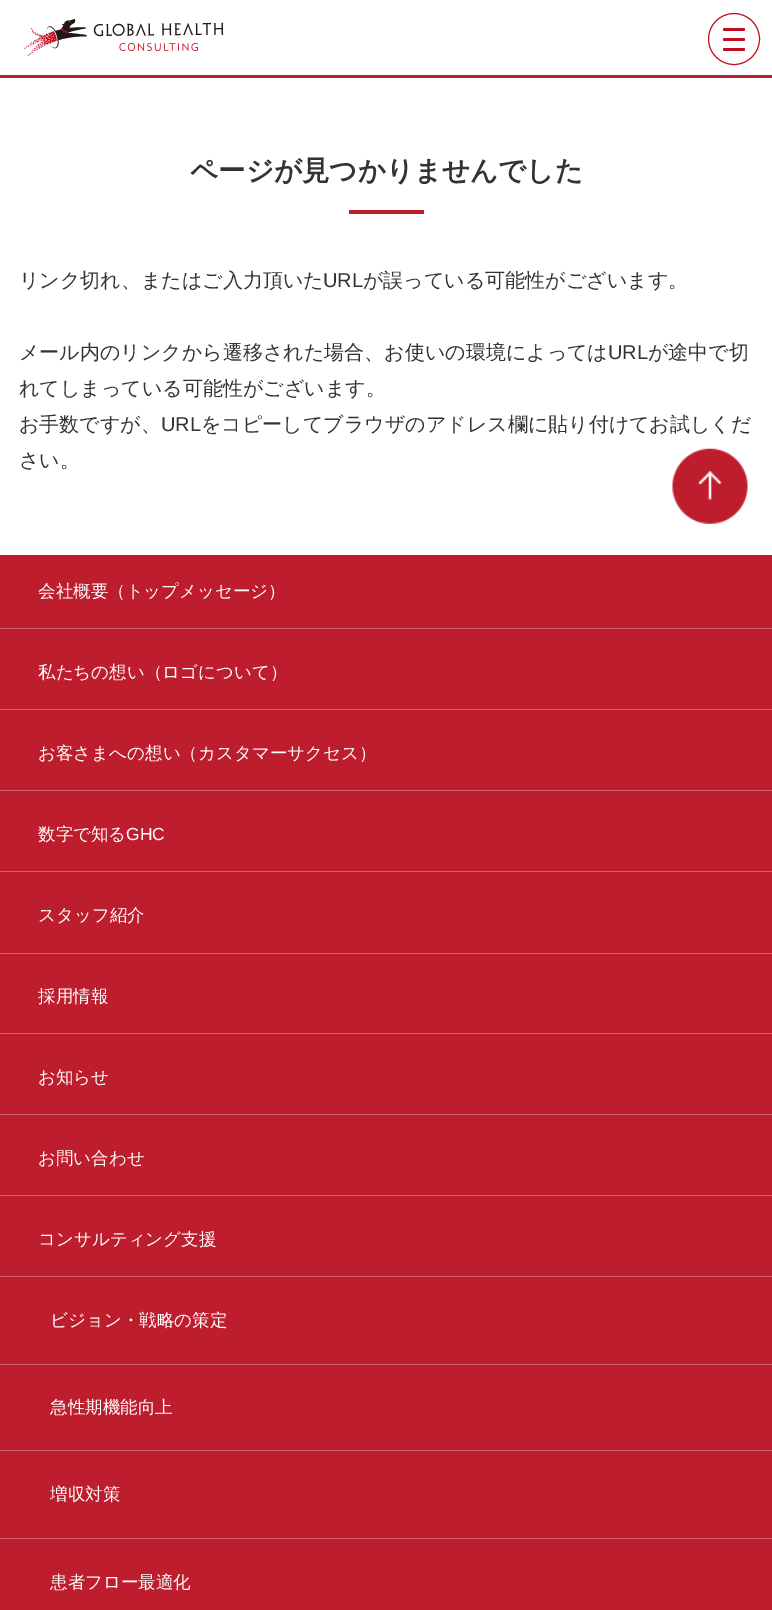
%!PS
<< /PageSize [772 1610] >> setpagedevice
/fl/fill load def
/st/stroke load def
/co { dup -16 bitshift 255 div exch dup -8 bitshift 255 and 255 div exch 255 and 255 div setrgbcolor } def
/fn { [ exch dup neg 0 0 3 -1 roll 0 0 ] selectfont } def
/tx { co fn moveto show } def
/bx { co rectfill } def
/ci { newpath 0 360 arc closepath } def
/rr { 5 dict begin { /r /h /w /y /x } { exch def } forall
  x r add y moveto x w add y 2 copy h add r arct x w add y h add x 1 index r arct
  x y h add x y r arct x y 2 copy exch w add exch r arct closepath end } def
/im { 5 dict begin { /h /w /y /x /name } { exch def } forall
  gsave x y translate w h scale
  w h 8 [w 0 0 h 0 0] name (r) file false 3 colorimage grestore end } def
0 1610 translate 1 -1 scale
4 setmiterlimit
0 0 772 1610 16#FFFFFF bx
0 75 772 3 16#BE1D2D bx
(media/1.raw) 24 19 200 37 im
16#C20C20 co
734 39 25.5 ci st
723 38 22 3 1.5 rr fl
723 28 22 3 1.5 rr fl
723 48 22 3 1.5 rr fl
349 210 75 4 16#BE1D2D bx
0 555 772 1055 16#BE1D2D bx
(media/2.raw) 672 448 76 76 im
0 628 772 1 16#D2616C bx
0 709 772 1 16#D2616C bx
0 790 772 1 16#D2616C bx
0 871 772 1 16#D2616C bx
0 953 772 1 16#D2616C bx
0 1033 772 1 16#D2616C bx
0 1114 772 1 16#D2616C bx
0 1195 772 1 16#D2616C bx
0 1276 772 1 16#D2616C bx
0 1364 772 1 16#D2616C bx
0 1450 772 1 16#D2616C bx
0 1538 772 1 16#D2616C bx
(ページが見つかりませんでした) 190 180 /WenQuanYiZenHei-Bold 27.5 16#333333 tx
(リンク切れ、またはご入力頂いた) 19 287 /WenQuanYiZenHei-Medium 20 16#333333 tx
(URL) 323 287 /LiberationSans-Regular 20 16#333333 tx
(が誤っている可能性がございます。) 363 287 /WenQuanYiZenHei-Medium 20 16#333333 tx
(メール内のリンクから遷移された場合、お使いの環境によっては) 19 359 /WenQuanYiZenHei-Medium 20 16#333333 tx
(URL) 608 359 /LiberationSans-Regular 20 16#333333 tx
(が途中で切) 648 359 /WenQuanYiZenHei-Medium 20 16#333333 tx
(れてしまっている可能性がございます。) 19 395 /WenQuanYiZenHei-Medium 20 16#333333 tx
(お手数ですが、) 19 431 /WenQuanYiZenHei-Medium 20 16#333333 tx
(URL) 161 431 /LiberationSans-Regular 20 16#333333 tx
(をコピーしてブラウザのアドレス欄に貼り付けてお試しくだ) 201 431 /WenQuanYiZenHei-Medium 20 16#333333 tx
(さい。) 19 467 /WenQuanYiZenHei-Medium 20 16#333333 tx
(会社概要（トップメッセージ）) 38 597 /WenQuanYiZenHei-Medium 17.5 16#FFFFFF tx
(私たちの想い（ロゴについて）) 38 678 /WenQuanYiZenHei-Medium 17.5 16#FFFFFF tx
(お客さまへの想い（カスタマーサクセス）) 38 759 /WenQuanYiZenHei-Medium 17.5 16#FFFFFF tx
(数字で知る) 38 840 /WenQuanYiZenHei-Medium 17.5 16#FFFFFF tx
(GHC) 126 840 /LiberationSans-Regular 17.5 16#FFFFFF tx
(スタッフ紹介) 38 921 /WenQuanYiZenHei-Medium 17.5 16#FFFFFF tx
(採用情報) 38 1002 /WenQuanYiZenHei-Medium 17.5 16#FFFFFF tx
(お知らせ) 38 1083 /WenQuanYiZenHei-Medium 17.5 16#FFFFFF tx
(お問い合わせ) 38 1164 /WenQuanYiZenHei-Medium 17.5 16#FFFFFF tx
(コンサルティング支援) 38 1245 /WenQuanYiZenHei-Medium 17.5 16#FFFFFF tx
(ビジョン・戦略の策定) 50 1326 /WenQuanYiZenHei-Medium 17.5 16#FFFFFF tx
(急性期機能向上) 50 1413 /WenQuanYiZenHei-Medium 17.5 16#FFFFFF tx
(増収対策) 50 1500 /WenQuanYiZenHei-Medium 17.5 16#FFFFFF tx
(患者フロー最適化) 50 1588 /WenQuanYiZenHei-Medium 17.5 16#FFFFFF tx
showpage
